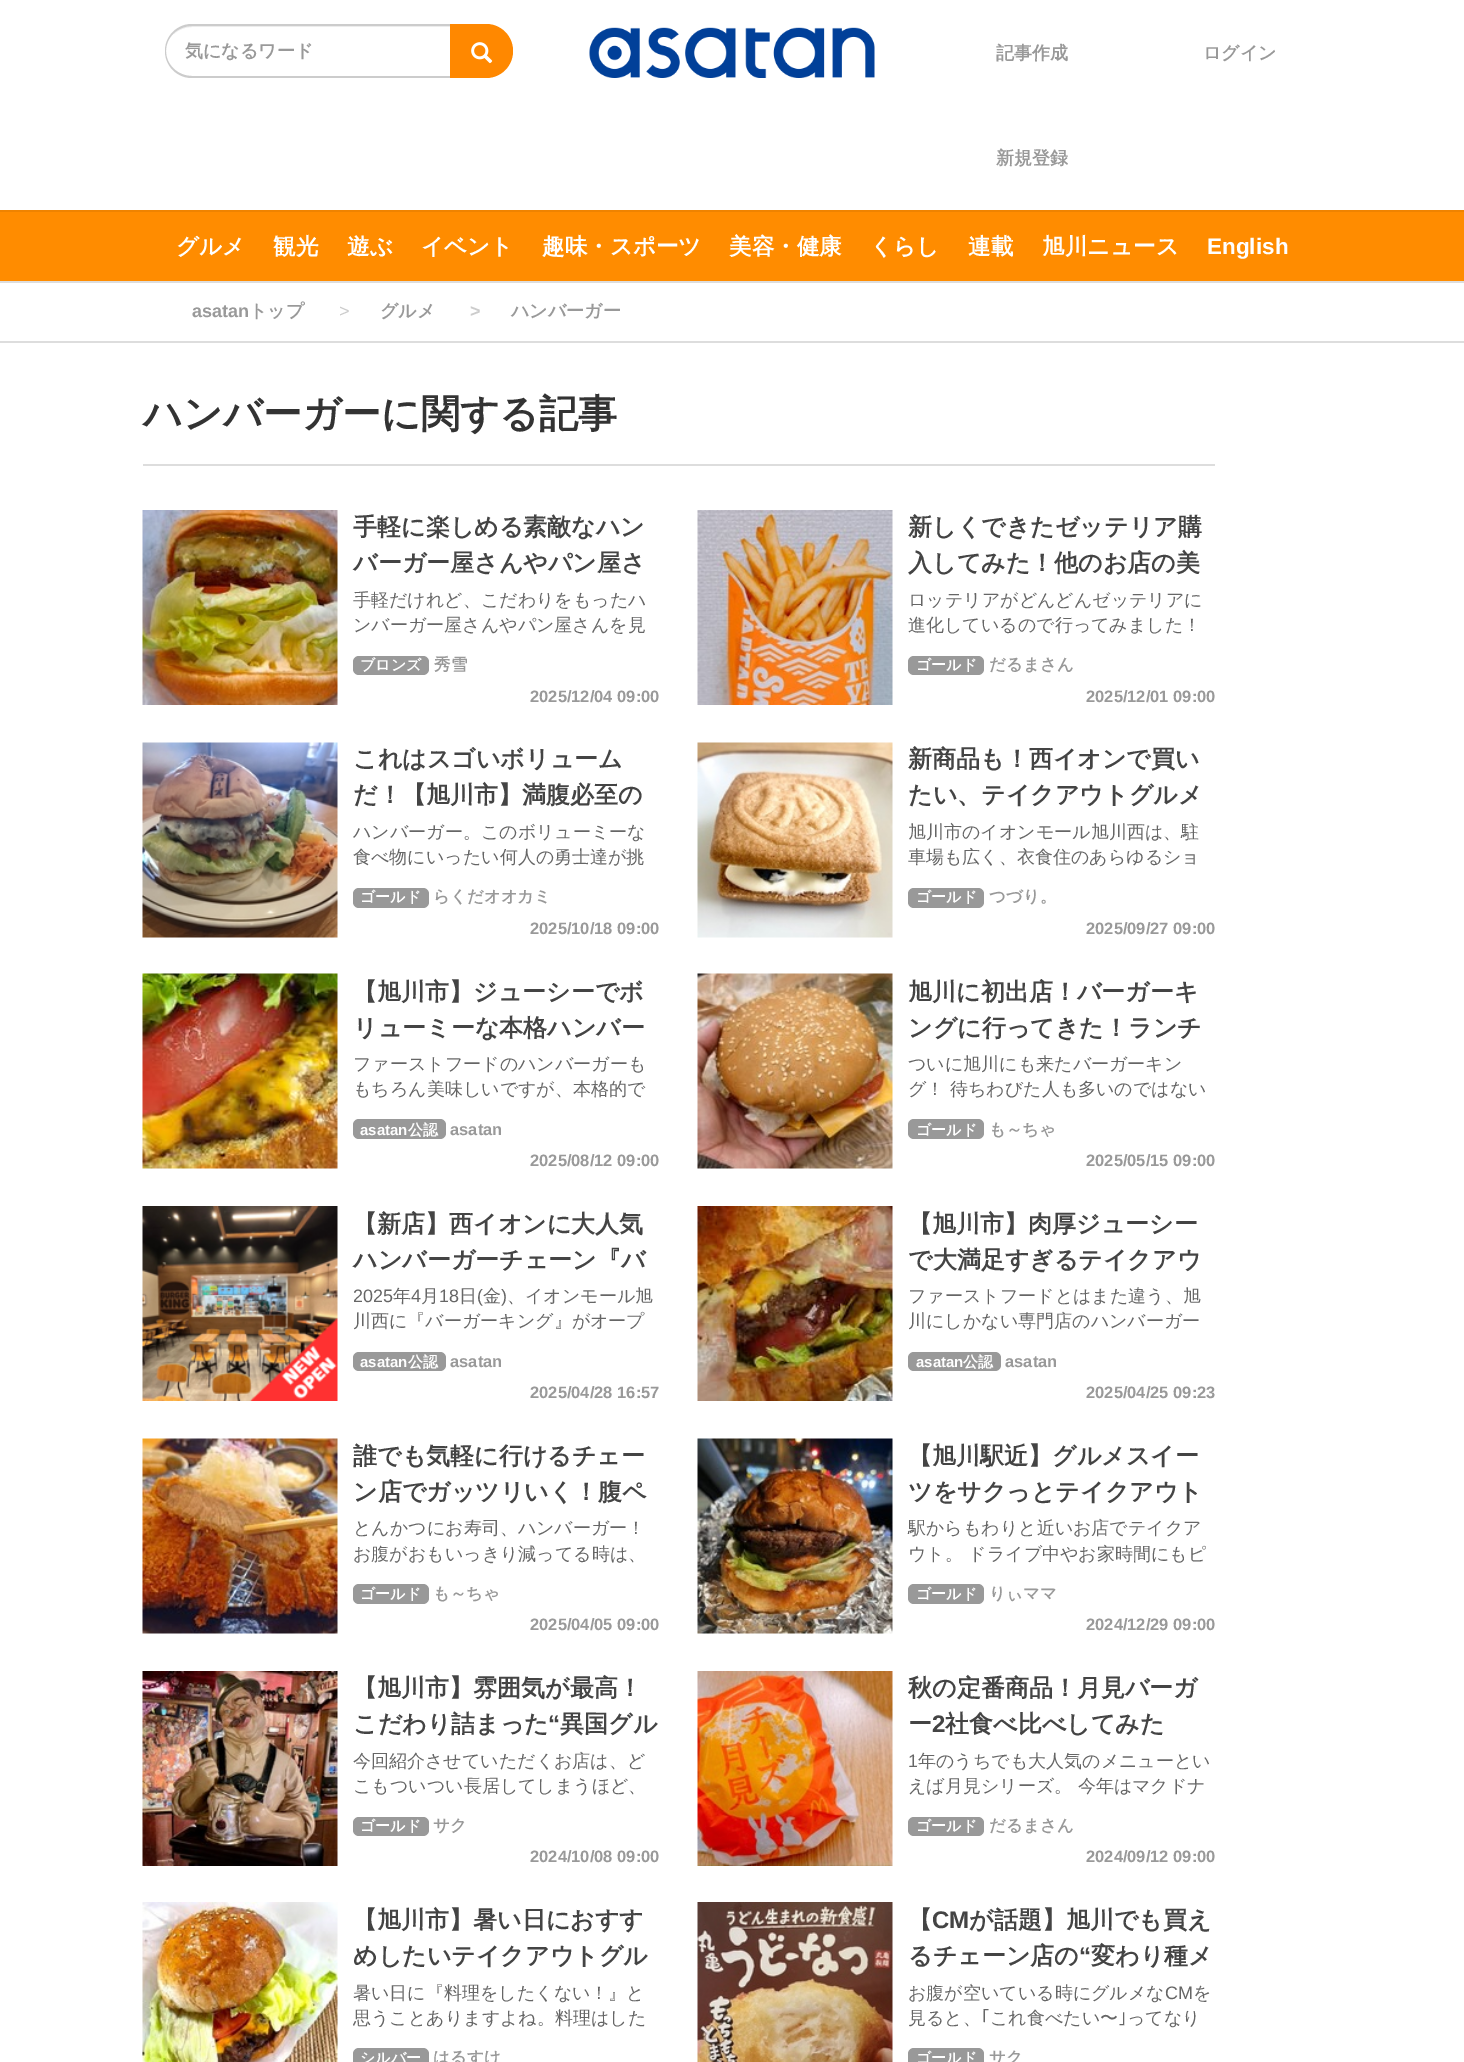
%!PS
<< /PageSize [1464 2062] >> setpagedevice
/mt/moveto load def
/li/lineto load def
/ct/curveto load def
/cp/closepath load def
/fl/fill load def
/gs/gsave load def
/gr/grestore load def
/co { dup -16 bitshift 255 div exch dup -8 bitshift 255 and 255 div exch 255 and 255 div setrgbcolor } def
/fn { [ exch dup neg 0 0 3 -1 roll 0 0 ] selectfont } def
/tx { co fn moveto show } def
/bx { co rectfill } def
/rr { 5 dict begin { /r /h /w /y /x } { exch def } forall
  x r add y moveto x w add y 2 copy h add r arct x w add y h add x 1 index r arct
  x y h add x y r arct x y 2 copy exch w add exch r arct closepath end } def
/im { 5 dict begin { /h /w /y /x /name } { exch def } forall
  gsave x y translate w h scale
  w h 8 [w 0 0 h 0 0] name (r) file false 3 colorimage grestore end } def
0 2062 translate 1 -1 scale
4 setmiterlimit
0 0 1464 2062 16#FFFFFF bx
0 281 1464 2 16#DDDDDD bx
16#ECECEC co
192 27 mt 450 27 li 450 26 li 192 26 li 185 26 178 29 174 34 ct 178 30 185 27 192 27 ct cp fl
16#CCCCCC co
192 24 mt 450 24 li 450 78 li 192 78 li 177 78 165 66 165 51 ct 165 36 177 24 192 24 ct cp 192 26 mt 450 26 li 450 76 li 192 76 li 178 76 166 65 166 51 ct 166 37 178 26 192 26 ct cp eofill
16#FF8800 co
450 24 mt 486 24 li 501 24 513 36 513 51 ct 513 66 501 78 486 78 ct 450 78 li cp fl
(media/1.raw) 471 42 22 22 im
(media/2.raw) 589 27 286 51 im
0 212 1464 69 16#FF8C00 bx
0 210 1464 2 16#EF8300 bx
0 341 1464 2 16#DDDDDD bx
143 464 1072 2 16#DDDDDD bx
(media/3.raw) 142 510 196 195 im
16#999999 co
353 656 76 19 6 rr fl
(media/4.raw) 697 510 196 195 im
908 656 76 19 6 rr fl
(media/5.raw) 142 742 196 196 im
353 888 76 20 6 rr fl
(media/6.raw) 697 742 196 196 im
908 888 76 20 6 rr fl
(media/7.raw) 142 973 196 196 im
353 1119 93 20 6 rr fl
(media/8.raw) 697 973 196 196 im
908 1119 76 20 6 rr fl
(media/9.raw) 142 1206 196 195 im
353 1352 93 19 6 rr fl
(media/10.raw) 697 1206 196 195 im
908 1352 93 19 6 rr fl
(media/11.raw) 142 1438 196 196 im
353 1584 76 20 6 rr fl
(media/12.raw) 697 1438 196 196 im
908 1584 76 20 6 rr fl
(media/13.raw) 142 1671 196 195 im
353 1817 76 19 6 rr fl
(media/14.raw) 697 1671 196 195 im
908 1817 76 19 6 rr fl
(media/15.raw) 142 1902 196 160 im
353 2048 76 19 6 rr fl
(media/16.raw) 697 1902 196 160 im
908 2048 76 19 6 rr fl
(気になるワード) 185 57 /WenQuanYiZenHei-Bold 18 16#999999 tx
(記事作成) 996 59 /WenQuanYiZenHei-Bold 18 16#999999 tx
(ログイン) 1203 59 /WenQuanYiZenHei-Bold 18 16#999999 tx
(新規登録) 996 164 /WenQuanYiZenHei-Bold 18 16#999999 tx
(グルメ) 176 254 /WenQuanYiZenHei-Bold 22.5 16#FFFFFF tx
(観光) 273 254 /WenQuanYiZenHei-Bold 22.5 16#FFFFFF tx
(遊ぶ) 347 254 /WenQuanYiZenHei-Bold 22.5 16#FFFFFF tx
(イベント) 421 254 /WenQuanYiZenHei-Bold 22.5 16#FFFFFF tx
(趣味・スポーツ) 542 254 /WenQuanYiZenHei-Bold 22.5 16#FFFFFF tx
(美容・健康) 729 254 /WenQuanYiZenHei-Bold 22.5 16#FFFFFF tx
(くらし) 870 254 /WenQuanYiZenHei-Bold 22.5 16#FFFFFF tx
(連載) 968 254 /WenQuanYiZenHei-Bold 22.5 16#FFFFFF tx
(旭川ニュース) 1042 254 /WenQuanYiZenHei-Bold 22.5 16#FFFFFF tx
(English) 1207 254 /LiberationSans-Bold 22.5 16#FFFFFF tx
(asatan) 192 317 /LiberationSans-Bold 18 16#999999 tx
(トップ) 249 317 /WenQuanYiZenHei-Bold 18 16#999999 tx
(>) 339 317 /LiberationSans-Regular 18 16#CCCCCC tx
(グルメ) 380 317 /WenQuanYiZenHei-Bold 18 16#999999 tx
(>) 470 317 /LiberationSans-Bold 18 16#CCCCCC tx
(ハンバーガー) 511 317 /WenQuanYiZenHei-Bold 18 16#999999 tx
(ハンバーガーに関する記事) 143 427 /WenQuanYiZenHei-Bold 39 16#333333 tx
(手軽に楽しめる素敵なハン) 353 535 /WenQuanYiZenHei-Bold 24 16#444444 tx
(バーガー屋さんやパン屋さ) 353 571 /WenQuanYiZenHei-Bold 24 16#444444 tx
(手軽だけれど、こだわりをもったハ) 353 606 /WenQuanYiZenHei-Medium 18 16#666666 tx
(ンバーガー屋さんやパン屋さんを見) 353 631 /WenQuanYiZenHei-Medium 18 16#666666 tx
(ブロンズ) 360 670 /WenQuanYiZenHei-Bold 15 16#FFFFFF tx
(秀雪) 434 670 /WenQuanYiZenHei-Bold 16.5 16#999999 tx
(2025/12/04 09:00) 530 702 /LiberationSans-Bold 16.5 16#999999 tx
(新しくできたゼッテリア購) 908 535 /WenQuanYiZenHei-Bold 24 16#444444 tx
(入してみた！他のお店の美) 908 571 /WenQuanYiZenHei-Bold 24 16#444444 tx
(ロッテリアがどんどんゼッテリアに) 908 606 /WenQuanYiZenHei-Medium 18 16#666666 tx
(進化しているので行ってみました！) 908 631 /WenQuanYiZenHei-Medium 18 16#666666 tx
(ゴールド) 916 670 /WenQuanYiZenHei-Bold 15 16#FFFFFF tx
(だるまさん) 989 670 /WenQuanYiZenHei-Bold 16.5 16#999999 tx
(2025/12/01 09:00) 1086 702 /LiberationSans-Bold 16.5 16#999999 tx
(これはスゴいボリューム) 353 767 /WenQuanYiZenHei-Bold 24 16#444444 tx
(だ！【旭川市】満腹必至の) 353 803 /WenQuanYiZenHei-Bold 24 16#444444 tx
(ハンバーガー。このボリューミーな) 353 838 /WenQuanYiZenHei-Medium 18 16#666666 tx
(食べ物にいったい何人の勇士達が挑) 353 863 /WenQuanYiZenHei-Medium 18 16#666666 tx
(ゴールド) 360 902 /WenQuanYiZenHei-Bold 15 16#FFFFFF tx
(らくだオオカミ) 433 902 /WenQuanYiZenHei-Bold 16.5 16#999999 tx
(2025/10/18 09:00) 530 934 /LiberationSans-Bold 16.5 16#999999 tx
(新商品も！西イオンで買い) 908 767 /WenQuanYiZenHei-Bold 24 16#444444 tx
(たい、テイクアウトグルメ) 908 803 /WenQuanYiZenHei-Bold 24 16#444444 tx
(旭川市のイオンモール旭川西は、駐) 908 838 /WenQuanYiZenHei-Medium 18 16#666666 tx
(車場も広く、衣食住のあらゆるショ) 908 863 /WenQuanYiZenHei-Medium 18 16#666666 tx
(ゴールド) 916 902 /WenQuanYiZenHei-Bold 15 16#FFFFFF tx
(つづり。) 989 902 /WenQuanYiZenHei-Bold 16.5 16#999999 tx
(2025/09/27 09:00) 1086 934 /LiberationSans-Bold 16.5 16#999999 tx
(【旭川市】ジューシーでボ) 353 1000 /WenQuanYiZenHei-Bold 24 16#444444 tx
(リューミーな本格ハンバー) 353 1036 /WenQuanYiZenHei-Bold 24 16#444444 tx
(ファーストフードのハンバーガーも) 353 1070 /WenQuanYiZenHei-Medium 18 16#666666 tx
(もちろん美味しいですが、本格的で) 353 1095 /WenQuanYiZenHei-Medium 18 16#666666 tx
(asatan) 360 1135 /LiberationSans-Bold 15 16#FFFFFF tx
(公認) 408 1135 /WenQuanYiZenHei-Bold 15 16#FFFFFF tx
(asatan) 450 1135 /LiberationSans-Bold 16.5 16#999999 tx
(2025/08/12 09:00) 530 1166 /LiberationSans-Bold 16.5 16#999999 tx
(旭川に初出店！バーガーキ) 908 1000 /WenQuanYiZenHei-Bold 24 16#444444 tx
(ングに行ってきた！ランチ) 908 1036 /WenQuanYiZenHei-Bold 24 16#444444 tx
(ついに旭川にも来たバーガーキン) 908 1070 /WenQuanYiZenHei-Medium 18 16#666666 tx
(グ！ 待ちわびた人も多いのではない) 908 1095 /WenQuanYiZenHei-Medium 18 16#666666 tx
(ゴールド) 916 1135 /WenQuanYiZenHei-Bold 15 16#FFFFFF tx
(も～ちゃ) 989 1135 /WenQuanYiZenHei-Bold 16.5 16#999999 tx
(2025/05/15 09:00) 1086 1166 /LiberationSans-Bold 16.5 16#999999 tx
(【新店】西イオンに大人気) 353 1232 /WenQuanYiZenHei-Bold 24 16#444444 tx
(ハンバーガーチェーン『バ) 353 1268 /WenQuanYiZenHei-Bold 24 16#444444 tx
(2025) 353 1302 /LiberationSans-Regular 18 16#666666 tx
(年) 393 1302 /WenQuanYiZenHei-Medium 18 16#666666 tx
(4) 411 1302 /LiberationSans-Regular 18 16#666666 tx
(月) 421 1302 /WenQuanYiZenHei-Medium 18 16#666666 tx
(18) 439 1302 /LiberationSans-Regular 18 16#666666 tx
(日) 459 1302 /WenQuanYiZenHei-Medium 18 16#666666 tx
(\() 477 1302 /LiberationSans-Regular 18 16#666666 tx
(金) 483 1302 /WenQuanYiZenHei-Medium 18 16#666666 tx
(\)) 501 1302 /LiberationSans-Regular 18 16#666666 tx
(、イオンモール旭) 507 1302 /WenQuanYiZenHei-Medium 18 16#666666 tx
(川西に『バーガーキング』がオープ) 353 1327 /WenQuanYiZenHei-Medium 18 16#666666 tx
(asatan) 360 1367 /LiberationSans-Bold 15 16#FFFFFF tx
(公認) 408 1367 /WenQuanYiZenHei-Bold 15 16#FFFFFF tx
(asatan) 450 1367 /LiberationSans-Bold 16.5 16#999999 tx
(2025/04/28 16:57) 530 1398 /LiberationSans-Bold 16.5 16#999999 tx
(【旭川市】肉厚ジューシー) 908 1232 /WenQuanYiZenHei-Bold 24 16#444444 tx
(で大満足すぎるテイクアウ) 908 1268 /WenQuanYiZenHei-Bold 24 16#444444 tx
(ファーストフードとはまた違う、旭) 908 1302 /WenQuanYiZenHei-Medium 18 16#666666 tx
(川にしかない専門店のハンバーガー) 908 1327 /WenQuanYiZenHei-Medium 18 16#666666 tx
(asatan) 916 1367 /LiberationSans-Bold 15 16#FFFFFF tx
(公認) 963 1367 /WenQuanYiZenHei-Bold 15 16#FFFFFF tx
(asatan) 1005 1367 /LiberationSans-Bold 16.5 16#999999 tx
(2025/04/25 09:23) 1086 1398 /LiberationSans-Bold 16.5 16#999999 tx
(誰でも気軽に行けるチェー) 353 1464 /WenQuanYiZenHei-Bold 24 16#444444 tx
(ン店でガッツリいく！腹ペ) 353 1500 /WenQuanYiZenHei-Bold 24 16#444444 tx
(とんかつにお寿司、ハンバーガー！) 353 1534 /WenQuanYiZenHei-Medium 18 16#666666 tx
(お腹がおもいっきり減ってる時は、) 353 1560 /WenQuanYiZenHei-Medium 18 16#666666 tx
(ゴールド) 360 1599 /WenQuanYiZenHei-Bold 15 16#FFFFFF tx
(も～ちゃ) 433 1599 /WenQuanYiZenHei-Bold 16.5 16#999999 tx
(2025/04/05 09:00) 530 1630 /LiberationSans-Bold 16.5 16#999999 tx
(【旭川駅近】グルメスイー) 908 1464 /WenQuanYiZenHei-Bold 24 16#444444 tx
(ツをサクっとテイクアウト) 908 1500 /WenQuanYiZenHei-Bold 24 16#444444 tx
(駅からもわりと近いお店でテイクア) 908 1534 /WenQuanYiZenHei-Medium 18 16#666666 tx
(ウト。 ドライブ中やお家時間にもピ) 908 1560 /WenQuanYiZenHei-Medium 18 16#666666 tx
(ゴールド) 916 1599 /WenQuanYiZenHei-Bold 15 16#FFFFFF tx
(りぃママ) 989 1599 /WenQuanYiZenHei-Bold 16.5 16#999999 tx
(2024/12/29 09:00) 1086 1630 /LiberationSans-Bold 16.5 16#999999 tx
(【旭川市】雰囲気が最高！) 353 1696 /WenQuanYiZenHei-Bold 24 16#444444 tx
(こだわり詰まった) 353 1732 /WenQuanYiZenHei-Bold 24 16#444444 tx
(“) 548 1732 /LiberationSans-Bold 24 16#444444 tx
(異国グル) 560 1732 /WenQuanYiZenHei-Bold 24 16#444444 tx
(今回紹介させていただくお店は、ど) 353 1767 /WenQuanYiZenHei-Medium 18 16#666666 tx
(こもついつい長居してしまうほど、) 353 1792 /WenQuanYiZenHei-Medium 18 16#666666 tx
(ゴールド) 360 1831 /WenQuanYiZenHei-Bold 15 16#FFFFFF tx
(サク) 433 1831 /WenQuanYiZenHei-Bold 16.5 16#999999 tx
(2024/10/08 09:00) 530 1862 /LiberationSans-Bold 16.5 16#999999 tx
(秋の定番商品！月見バーガ) 908 1696 /WenQuanYiZenHei-Bold 24 16#444444 tx
(ー) 908 1732 /WenQuanYiZenHei-Bold 24 16#444444 tx
(2) 932 1732 /LiberationSans-Bold 24 16#444444 tx
(社食べ比べしてみた) 945 1732 /WenQuanYiZenHei-Bold 24 16#444444 tx
(1) 908 1767 /LiberationSans-Regular 18 16#666666 tx
(年のうちでも大人気のメニューとい) 918 1767 /WenQuanYiZenHei-Medium 18 16#666666 tx
(えば月見シリーズ。 今年はマクドナ) 908 1792 /WenQuanYiZenHei-Medium 18 16#666666 tx
(ゴールド) 916 1831 /WenQuanYiZenHei-Bold 15 16#FFFFFF tx
(だるまさん) 989 1831 /WenQuanYiZenHei-Bold 16.5 16#999999 tx
(2024/09/12 09:00) 1086 1862 /LiberationSans-Bold 16.5 16#999999 tx
(【旭川市】暑い日におすす) 353 1928 /WenQuanYiZenHei-Bold 24 16#444444 tx
(めしたいテイクアウトグル) 353 1964 /WenQuanYiZenHei-Bold 24 16#444444 tx
(暑い日に『料理をしたくない！』と) 353 1999 /WenQuanYiZenHei-Medium 18 16#666666 tx
gs
353 1980 307 47 rectclip
(思うことありますよね。料理はした) 353 2024 /WenQuanYiZenHei-Medium 18 16#666666 tx
gr
(シルバー) 360 2063 /WenQuanYiZenHei-Bold 15 16#FFFFFF tx
(はるすけ) 433 2063 /WenQuanYiZenHei-Bold 16.5 16#999999 tx
(【) 908 1928 /WenQuanYiZenHei-Bold 24 16#444444 tx
(CM) 932 1928 /LiberationSans-Bold 24 16#444444 tx
(が話題】旭川でも買え) 969 1928 /WenQuanYiZenHei-Bold 24 16#444444 tx
(るチェーン店の) 908 1964 /WenQuanYiZenHei-Bold 24 16#444444 tx
(“) 1079 1964 /LiberationSans-Bold 24 16#444444 tx
(変わり種メ) 1091 1964 /WenQuanYiZenHei-Bold 24 16#444444 tx
(お腹が空いている時にグルメな) 908 1999 /WenQuanYiZenHei-Medium 18 16#666666 tx
(CM) 1165 1999 /LiberationSans-Regular 18 16#666666 tx
(を) 1193 1999 /WenQuanYiZenHei-Medium 18 16#666666 tx
(見ると、) 908 2024 /WenQuanYiZenHei-Medium 18 16#666666 tx
(｢) 981 2024 /IPAGothic-Regular 18 16#666666 tx
(これ食べたい〜) 990 2024 /WenQuanYiZenHei-Medium 18 16#666666 tx
(｣) 1118 2024 /IPAGothic-Regular 18 16#666666 tx
(ってなり) 1127 2024 /WenQuanYiZenHei-Medium 18 16#666666 tx
(ゴールド) 916 2063 /WenQuanYiZenHei-Bold 15 16#FFFFFF tx
(サク) 989 2063 /WenQuanYiZenHei-Bold 16.5 16#999999 tx
showpage
